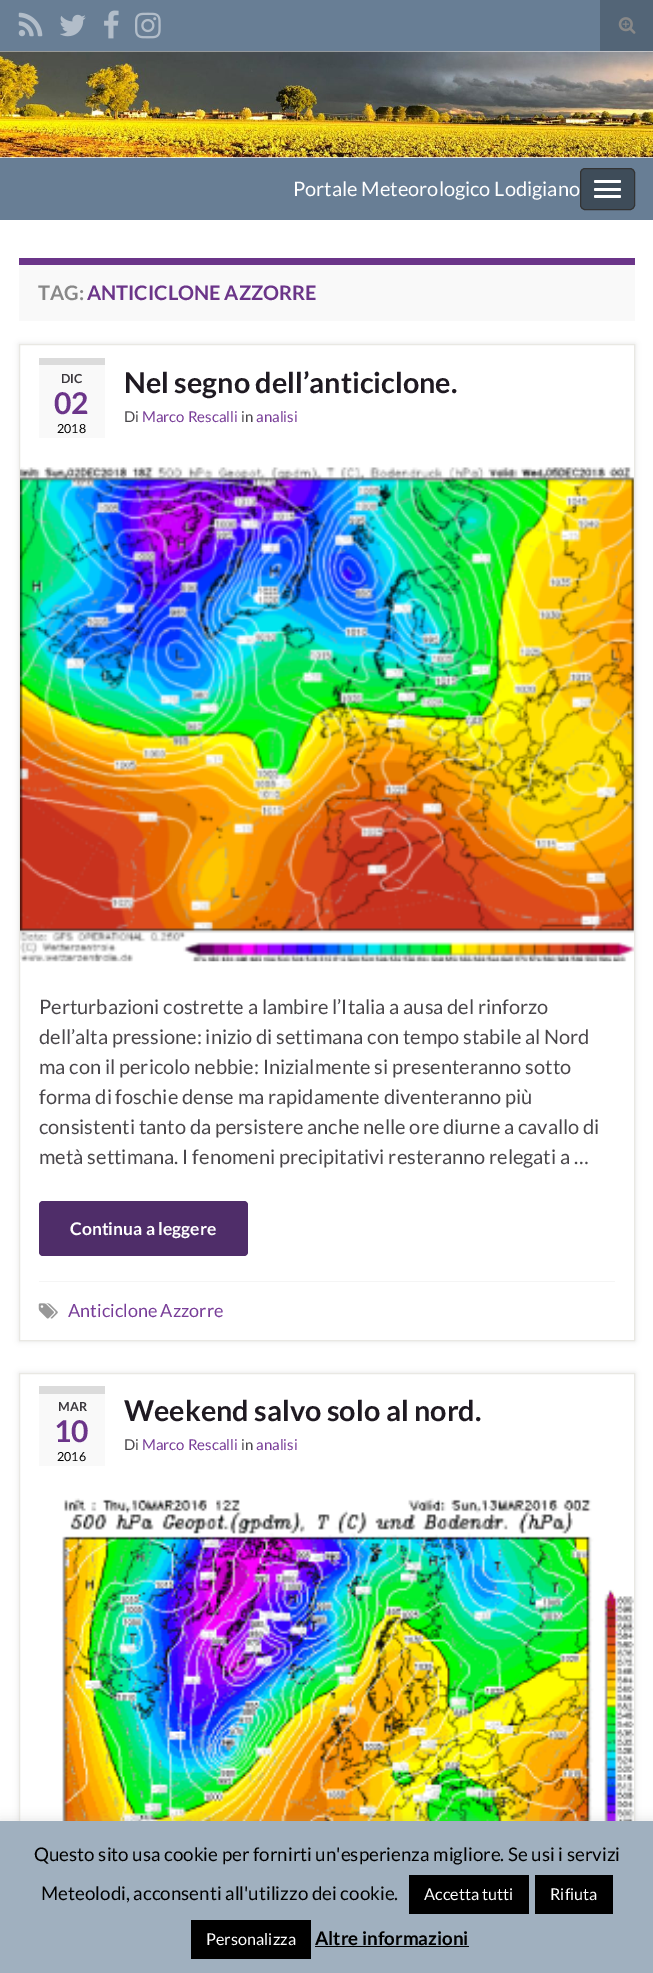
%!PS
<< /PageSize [653 1973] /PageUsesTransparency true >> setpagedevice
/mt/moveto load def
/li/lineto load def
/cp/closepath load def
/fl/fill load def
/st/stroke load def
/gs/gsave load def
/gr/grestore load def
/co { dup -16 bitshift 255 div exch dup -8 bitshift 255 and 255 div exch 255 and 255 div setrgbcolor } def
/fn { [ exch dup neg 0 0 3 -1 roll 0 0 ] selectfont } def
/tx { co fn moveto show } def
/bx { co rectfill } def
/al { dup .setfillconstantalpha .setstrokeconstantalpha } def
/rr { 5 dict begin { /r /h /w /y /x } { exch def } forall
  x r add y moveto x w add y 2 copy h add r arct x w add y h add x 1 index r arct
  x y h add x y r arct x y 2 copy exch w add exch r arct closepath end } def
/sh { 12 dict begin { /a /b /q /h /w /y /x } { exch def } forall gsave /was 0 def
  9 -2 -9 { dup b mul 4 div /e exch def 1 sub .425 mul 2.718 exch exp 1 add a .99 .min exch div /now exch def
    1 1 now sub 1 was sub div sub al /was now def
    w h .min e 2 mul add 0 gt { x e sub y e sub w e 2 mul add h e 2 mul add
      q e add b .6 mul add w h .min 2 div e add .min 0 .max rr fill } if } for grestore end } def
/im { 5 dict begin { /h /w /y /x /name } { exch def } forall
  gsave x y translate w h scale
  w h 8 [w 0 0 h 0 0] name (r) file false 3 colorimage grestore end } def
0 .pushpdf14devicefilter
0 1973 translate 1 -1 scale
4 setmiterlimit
0 0 653 1973 16#687E95 bx
(media/1.raw) 18 12 25 25 im
(media/2.raw) 60 14 26 23 im
(media/3.raw) 104 10 15 29 im
(media/4.raw) 135 12 26 27 im
600 0 53 51 16#536577 bx
(media/5.raw) 618 17 18 17 im
0 51 653 107 16#FFFFFF bx
(media/6.raw) 0 51 653 107 im
16#3E4C59 co
580.5 168.5 54 41 4.5 rr gs fl gr
16#333333 co
st
16#FFFFFF co
594 180 27 3 1.5 rr fl
594 188 27 3 1.5 rr fl
594 195 27 3 1.5 rr fl
0 220 653 1601 16#FFFFFF bx
19 265 616 56 16#F9F9F9 bx
19 258 616 7 16#6B3589 bx
gs
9 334 mt 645 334 li 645 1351 li 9 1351 li cp 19 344 mt 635 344 li 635 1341 li 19 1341 li cp eoclip newpath
16#000000 co
19 344 616 997 0 3 .1 sh
gr
16#E9E8E3 co
19.5 344.5 615 996 rectstroke
39 365 66 73 16#F9F9F9 bx
39 358 66 7 16#DBDBDB bx
(media/7.raw) 20 467 614 495 im
16#4F2D69 co
39 1201 209 55 4 rr fl
39 1281 576 1 16#F5F5F5 bx
(media/8.raw) 38 1303 20 16 im
gs
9 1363 mt 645 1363 li 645 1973 li 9 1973 li cp 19 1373 mt 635 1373 li 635 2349 li 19 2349 li cp eoclip newpath
16#000000 co
19 1373 616 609 0 3 .1 sh
gr
16#E9E8E3 co
19.5 1373.5 615 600 rectstroke
39 1394 66 72 16#F9F9F9 bx
39 1386 66 8 16#DBDBDB bx
(media/9.raw) 61 1498 573 323 im
16#ACABAB co
0 1820 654 153 0 6 .3 sh
0 1821 653 152 16#A0B0BF bx
409 1875 120 39 16#000000 bx
535 1875 78 39 16#000000 bx
191 1920 120 39 16#000000 bx
315 1946 154 1 16#000000 bx
(Portale Meteorologico Lodigiano) 293 196 /Lato-Regular 20 16#FFFFFF tx
(TAG:) 38 300 /Lato-Bold 20 16#888888 tx
(ANTICICLONE AZZORRE) 87 300 /Lato-Bold 20 16#6B3589 tx
(DIC) 61 383 /Lato-Bold 12.5 16#3B383D tx
(02) 54 414 /Lato-Bold 30 16#6B3589 tx
(2018) 57 433 /Lato-Regular 12.5 16#000000 tx
(Nel segno dell’anticiclone.) 124 393 /Lato-Bold 28.75 16#1F1A22 tx
(Di) 124 422 /Lato-Regular 15 16#4A474B tx
(Marco Rescalli) 142 422 /Lato-Regular 15 16#783D98 tx
(in) 241 422 /Lato-Regular 15 16#4A474B tx
(analisi) 256 422 /Lato-Regular 15 16#783D98 tx
(Perturbazioni costrette a lambire l’Italia a ausa del rinforzo) 39 1014 /Lato-Regular 20 16#4A474B tx
(dell’alta pressione: inizio di settimana con tempo stabile al Nord) 39 1044 /Lato-Regular 20 16#4A474B tx
(ma con il pericolo nebbie: Inizialmente si presenteranno sotto) 39 1074 /Lato-Regular 20 16#4A474B tx
(forma di foschie dense ma rapidamente diventeranno più) 39 1104 /Lato-Regular 20 16#4A474B tx
(consistenti tanto da persistere anche nelle ore diurne a cavallo di) 39 1134 /Lato-Regular 20 16#4A474B tx
(metà settimana. I fenomeni precipitativi resteranno relegati a …) 39 1164 /Lato-Regular 20 16#4A474B tx
(Continua a leggere) 70 1235 /Lato-Bold 17.5 16#FFFFFF tx
(Anticiclone Azzorre) 68 1317 /Lato-Regular 18 16#783D98 tx
(MAR) 58 1411 /Lato-Bold 12.5 16#3B383D tx
(10) 54 1442 /Lato-Bold 30 16#6B3589 tx
(2016) 57 1461 /Lato-Regular 12.5 16#000000 tx
(Weekend salvo solo al nord.) 124 1421 /Lato-Bold 28.75 16#1F1A22 tx
(Di) 124 1450 /Lato-Regular 15 16#4A474B tx
(Marco Rescalli) 142 1450 /Lato-Regular 15 16#783D98 tx
(in) 241 1450 /Lato-Regular 15 16#4A474B tx
(analisi) 256 1450 /Lato-Regular 15 16#783D98 tx
(Questo sito usa cookie per fornirti un'esperienza migliore. Se usi i servizi) 34 1861 /Lato-Regular 18.75 16#000000 tx
(Meteolodi, acconsenti all'utilizzo dei cookie.) 41 1900 /Lato-Regular 18.75 16#000000 tx
(Accetta tutti) 424 1900 /Lato-Regular 16.25 16#FFFFFF tx
(Rifiuta) 550 1900 /Lato-Regular 16.25 16#FFFFFF tx
(Personalizza) 206 1945 /Lato-Regular 16.25 16#FFFFFF tx
(Altre informazioni) 315 1945 /Lato-Bold 18.75 16#000000 tx
.poppdf14devicefilter showpage
